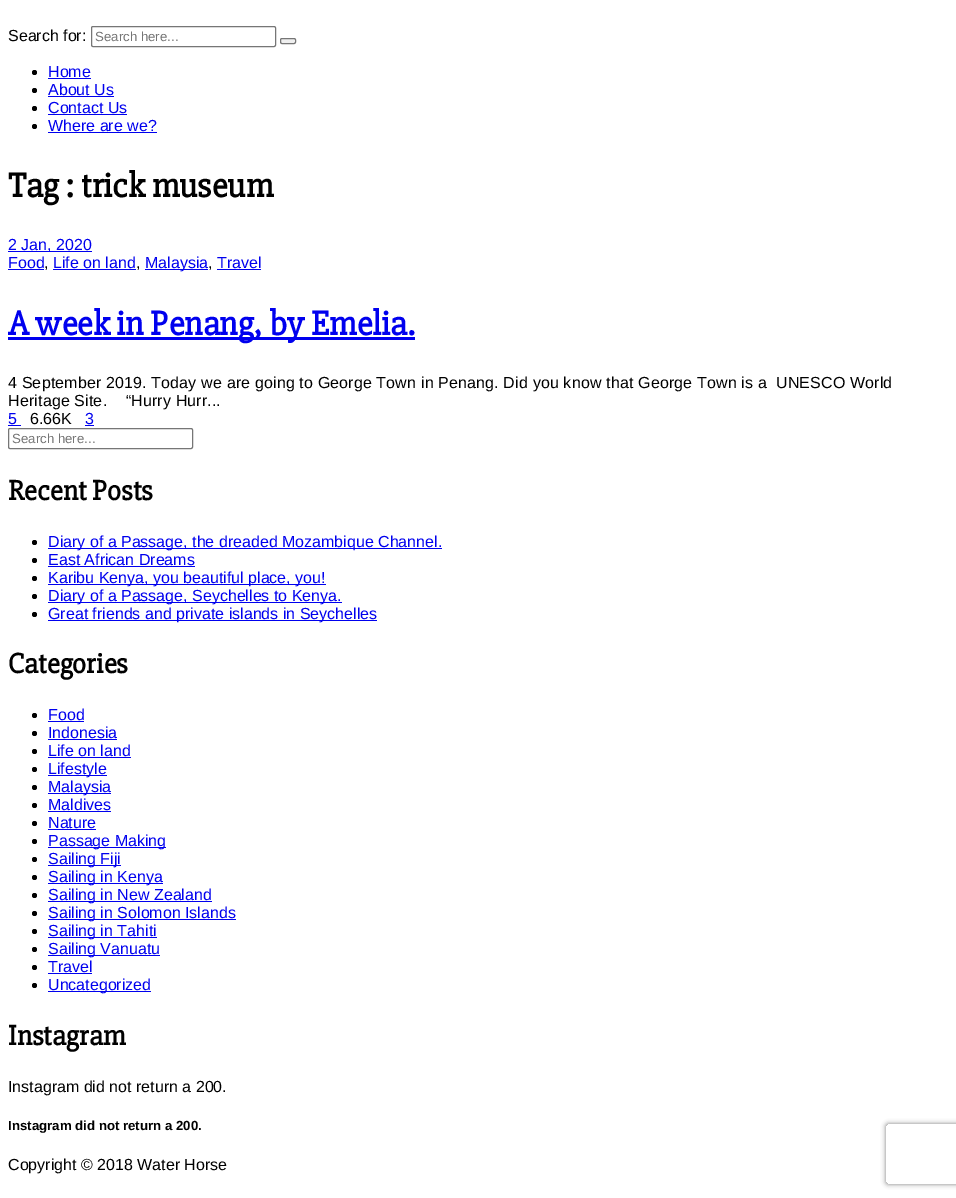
%!PS
<< /PageSize [956 1198] /PageUsesTransparency true >> setpagedevice
/mt/moveto load def
/li/lineto load def
/ct/curveto load def
/cp/closepath load def
/fl/fill load def
/st/stroke load def
/gs/gsave load def
/gr/grestore load def
/co { dup -16 bitshift 255 div exch dup -8 bitshift 255 and 255 div exch 255 and 255 div setrgbcolor } def
/fn { [ exch dup neg 0 0 3 -1 roll 0 0 ] selectfont } def
/tx { co fn moveto show } def
/bx { co rectfill } def
/al { dup .setfillconstantalpha .setstrokeconstantalpha } def
/ci { newpath 0 360 arc closepath } def
/rr { 5 dict begin { /r /h /w /y /x } { exch def } forall
  x r add y moveto x w add y 2 copy h add r arct x w add y h add x 1 index r arct
  x y h add x y r arct x y 2 copy exch w add exch r arct closepath end } def
/sh { 12 dict begin { /a /b /q /h /w /y /x } { exch def } forall gsave /was 0 def
  9 -2 -9 { dup b mul 4 div /e exch def 1 sub .425 mul 2.718 exch exp 1 add a .99 .min exch div /now exch def
    1 1 now sub 1 was sub div sub al /was now def
    w h .min e 2 mul add 0 gt { x e sub y e sub w e 2 mul add h e 2 mul add
      q e add b .6 mul add w h .min 2 div e add .min 0 .max rr fill } if } for grestore end } def
0 .pushpdf14devicefilter
0 1198 translate 1 -1 scale
4 setmiterlimit
0 0 956 1198 16#FFFFFF bx
16#767676 co
91.5 26.5 184 20 1.5 rr st
16#EFEFEF co
280.5 38.5 15 5 1.5 rr gs fl gr
16#767676 co
st
16#000000 co
34.5 72.5 2.5 ci fl
48 78 43 1 16#0000EE bx
16#000000 co
34.5 90.5 2.5 ci fl
48 96 66 1 16#0000EE bx
16#000000 co
34.5 108.5 2.5 ci fl
48 114 79 1 16#0000EE bx
16#000000 co
34.5 126.5 2.5 ci fl
48 132 109 1 16#0000EE bx
8 251 84 1 16#0000EE bx
8 269 36 1 16#0000EE bx
53 269 83 1 16#0000EE bx
145 269 63 1 16#0000EE bx
217 269 44 1 16#0000EE bx
8 337 407 3 16#0000EE bx
8 425 13 1 16#0000EE bx
85 425 9 1 16#0000EE bx
16#767676 co
8.5 428.5 184 20 1.5 rr st
16#000000 co
34.5 542.5 2.5 ci fl
48 548 394 1 16#0000EE bx
16#000000 co
34.5 560.5 2.5 ci fl
48 566 147 1 16#0000EE bx
16#000000 co
34.5 578.5 2.5 ci fl
48 584 278 1 16#0000EE bx
16#000000 co
34.5 596.5 2.5 ci fl
48 602 294 1 16#0000EE bx
16#000000 co
34.5 614.5 2.5 ci fl
48 620 329 1 16#0000EE bx
16#000000 co
34.5 715.5 2.5 ci fl
48 721 36 1 16#0000EE bx
16#000000 co
34.5 733.5 2.5 ci fl
48 739 69 1 16#0000EE bx
16#000000 co
34.5 751.5 2.5 ci fl
48 757 83 1 16#0000EE bx
16#000000 co
34.5 769.5 2.5 ci fl
48 775 59 1 16#0000EE bx
16#000000 co
34.5 787.5 2.5 ci fl
48 793 63 1 16#0000EE bx
16#000000 co
34.5 805.5 2.5 ci fl
48 811 63 1 16#0000EE bx
16#000000 co
34.5 823.5 2.5 ci fl
48 829 48 1 16#0000EE bx
16#000000 co
34.5 841.5 2.5 ci fl
48 847 118 1 16#0000EE bx
16#000000 co
34.5 859.5 2.5 ci fl
48 865 73 1 16#0000EE bx
16#000000 co
34.5 877.5 2.5 ci fl
48 883 115 1 16#0000EE bx
16#000000 co
34.5 895.5 2.5 ci fl
48 901 164 1 16#0000EE bx
16#000000 co
34.5 913.5 2.5 ci fl
48 919 188 1 16#0000EE bx
16#000000 co
34.5 931.5 2.5 ci fl
48 937 109 1 16#0000EE bx
16#000000 co
34.5 949.5 2.5 ci fl
48 955 112 1 16#0000EE bx
16#000000 co
34.5 967.5 2.5 ci fl
48 973 44 1 16#0000EE bx
16#000000 co
34.5 985.5 2.5 ci fl
48 991 103 1 16#0000EE bx
gs
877 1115 mt 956 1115 li 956 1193 li 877 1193 li cp 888 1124 mt 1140 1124 li 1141 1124 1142 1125 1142 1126 ct 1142 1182 li 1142 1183 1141 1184 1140 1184 ct 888 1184 li 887 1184 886 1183 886 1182 ct 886 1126 li 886 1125 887 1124 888 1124 ct cp eoclip newpath
16#808080 co
886 1124 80 60 2 2.5 1 sh
gr
(Search for:) 8 41 /LiberationSans-Regular 16 16#000000 tx
(Search here...) 95 41 /LiberationSans-Regular 13.25 16#757575 tx
(Home) 48 77 /LiberationSans-Regular 16 16#0000EE tx
(About Us) 48 95 /LiberationSans-Regular 16 16#0000EE tx
(Contact Us) 48 113 /LiberationSans-Regular 16 16#0000EE tx
(Where are we?) 48 131 /LiberationSans-Regular 16 16#0000EE tx
(Tag : trick museum) 8 197 /Slabo27px-Bold 35.25 16#000000 tx
(2 Jan, 2020) 8 250 /LiberationSans-Regular 16 16#0000EE tx
(Food) 8 268 /LiberationSans-Regular 16 16#0000EE tx
(,) 44 268 /LiberationSans-Regular 16 16#000000 tx
(Life on land) 53 268 /LiberationSans-Regular 16 16#0000EE tx
(,) 136 268 /LiberationSans-Regular 16 16#000000 tx
(Malaysia) 145 268 /LiberationSans-Regular 16 16#0000EE tx
(,) 208 268 /LiberationSans-Regular 16 16#000000 tx
(Travel) 217 268 /LiberationSans-Regular 16 16#0000EE tx
(A week in Penang, by Emelia.) 8 335 /Slabo27px-Bold 35.25 16#0000EE tx
/LiberationSans-Regular 16 fn
16#000000 co
8 388 mt .16 0 (4 September 2019. Today we are going to George Town in Penang. Did you know that George Town is a  UNESCO World) ashow
8 406 mt .16 0 (Heritage Site.    “Hurry Hurr...) ashow
(5) 8 424 /LiberationSans-Regular 16 16#0000EE tx
(6.66K) 30 424 /LiberationSans-Regular 16 16#000000 tx
(3) 85 424 /LiberationSans-Regular 16 16#0000EE tx
(Search here...) 12 443 /LiberationSans-Regular 13.25 16#757575 tx
(Recent Posts) 8 500 /Slabo27px-Bold 29 16#000000 tx
(Diary of a Passage, the dreaded Mozambique Channel.) 48 547 /LiberationSans-Regular 16 16#0000EE tx
(East African Dreams) 48 565 /LiberationSans-Regular 16 16#0000EE tx
(Karibu Kenya, you beautiful place, you!) 48 583 /LiberationSans-Regular 16 16#0000EE tx
(Diary of a Passage, Seychelles to Kenya.) 48 601 /LiberationSans-Regular 16 16#0000EE tx
(Great friends and private islands in Seychelles) 48 619 /LiberationSans-Regular 16 16#0000EE tx
(Categories) 8 673 /Slabo27px-Bold 29 16#000000 tx
(Food) 48 720 /LiberationSans-Regular 16 16#0000EE tx
(Indonesia) 48 738 /LiberationSans-Regular 16 16#0000EE tx
(Life on land) 48 756 /LiberationSans-Regular 16 16#0000EE tx
(Lifestyle) 48 774 /LiberationSans-Regular 16 16#0000EE tx
(Malaysia) 48 792 /LiberationSans-Regular 16 16#0000EE tx
(Maldives) 48 810 /LiberationSans-Regular 16 16#0000EE tx
(Nature) 48 828 /LiberationSans-Regular 16 16#0000EE tx
(Passage Making) 48 846 /LiberationSans-Regular 16 16#0000EE tx
(Sailing Fiji) 48 864 /LiberationSans-Regular 16 16#0000EE tx
(Sailing in Kenya) 48 882 /LiberationSans-Regular 16 16#0000EE tx
(Sailing in New Zealand) 48 900 /LiberationSans-Regular 16 16#0000EE tx
(Sailing in Solomon Islands) 48 918 /LiberationSans-Regular 16 16#0000EE tx
(Sailing in Tahiti) 48 936 /LiberationSans-Regular 16 16#0000EE tx
(Sailing Vanuatu) 48 954 /LiberationSans-Regular 16 16#0000EE tx
(Travel) 48 972 /LiberationSans-Regular 16 16#0000EE tx
(Uncategorized) 48 990 /LiberationSans-Regular 16 16#0000EE tx
(Instagram) 8 1045 /Slabo27px-Bold 29 16#000000 tx
(Instagram did not return a 200.) 8 1092 /LiberationSans-Regular 16 16#000000 tx
(Instagram did not return a 200.) 8 1130 /LiberationSans-Bold 13.25 16#000000 tx
(Copyright © 2018 Water Horse) 8 1170 /LiberationSans-Regular 16 16#000000 tx
.poppdf14devicefilter showpage
